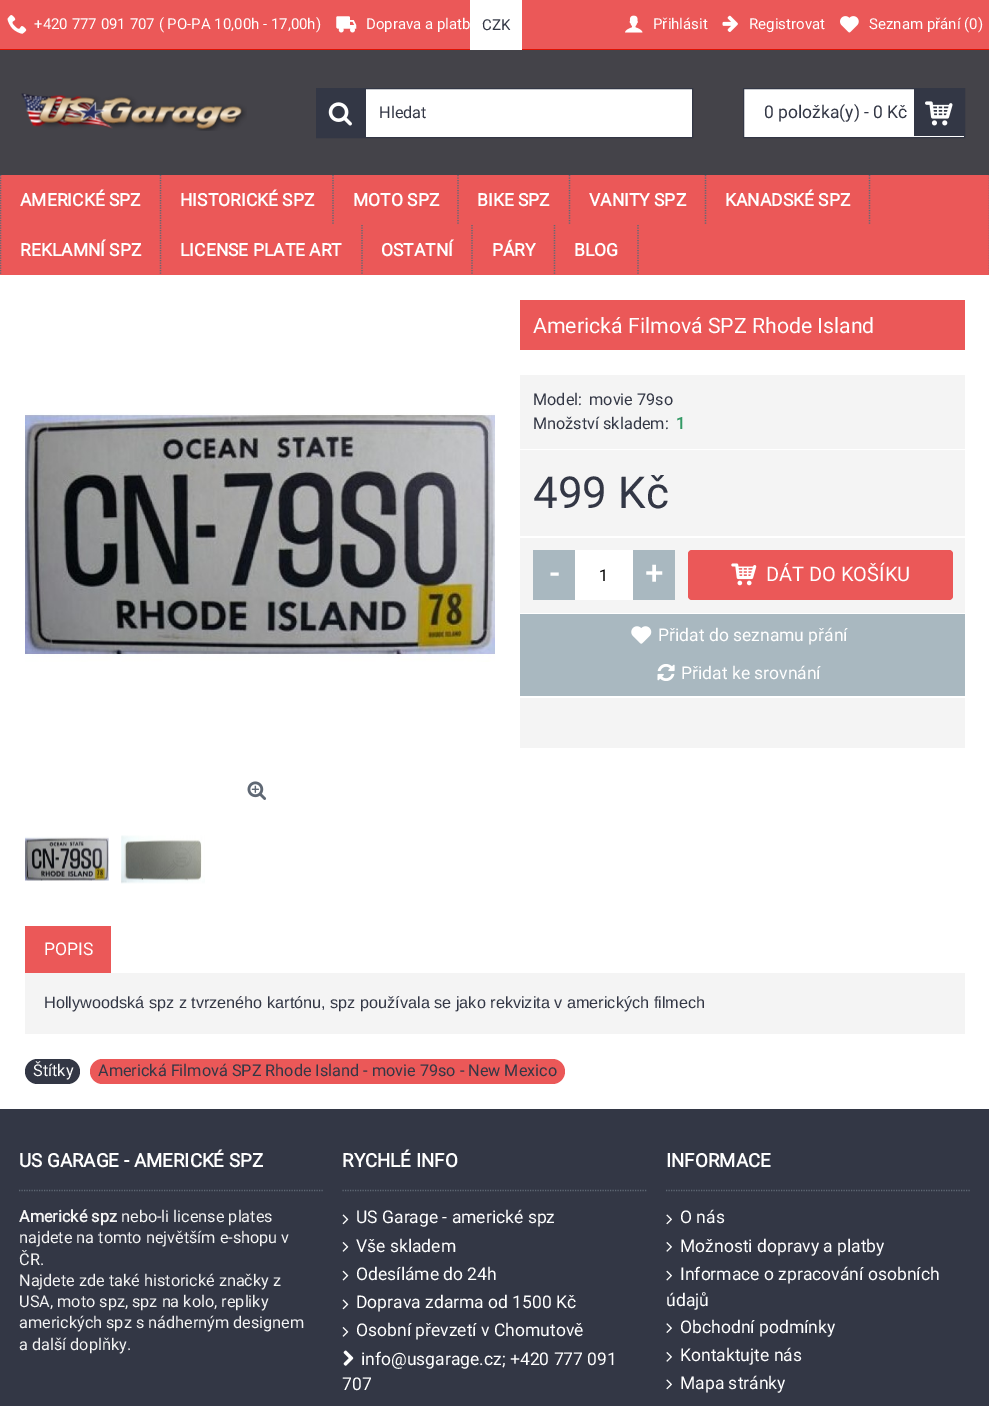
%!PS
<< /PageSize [989 1406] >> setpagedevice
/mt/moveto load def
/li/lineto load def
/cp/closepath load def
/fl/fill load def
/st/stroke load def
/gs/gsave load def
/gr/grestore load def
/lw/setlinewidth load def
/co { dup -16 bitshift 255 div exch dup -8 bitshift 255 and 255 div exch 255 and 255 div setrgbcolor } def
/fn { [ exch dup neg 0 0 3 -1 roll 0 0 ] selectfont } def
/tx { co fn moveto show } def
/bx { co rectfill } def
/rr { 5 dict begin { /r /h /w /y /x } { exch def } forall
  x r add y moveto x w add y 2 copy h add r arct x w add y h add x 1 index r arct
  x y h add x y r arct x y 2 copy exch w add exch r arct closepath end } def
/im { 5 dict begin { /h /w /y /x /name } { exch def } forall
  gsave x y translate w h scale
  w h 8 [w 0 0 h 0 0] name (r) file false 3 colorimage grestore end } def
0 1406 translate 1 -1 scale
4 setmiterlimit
0 0 989 1406 16#FFFFFF bx
0 50 989 125 16#444349 bx
0 0 989 49 16#EB5858 bx
0 49 989 1 16#E01203 bx
(media/1.raw) 7 15 20 19 im
(media/2.raw) 336 16 21 17 im
521 0 1 50 16#FFFFFF bx
470 0 51 50 16#FFFFFF bx
(media/3.raw) 625 15 18 18 im
(media/4.raw) 722 15 16 17 im
(media/5.raw) 840 16 19 17 im
(media/6.raw) 21 93 226 38 im
366 89 326 48 16#FFFFFF bx
16#333745 co
316.5 88.5 376 49 rectstroke
317 89 49 48 16#333745 bx
(media/7.raw) 328 102 24 24 im
16#FFFFFF co
743.5 88.5 mt 964.5 88.5 li 964.5 137.5 li 743.5 137.5 li cp gs fl gr
16#333745 co
st
914 89 50 47 16#333745 bx
(media/8.raw) 925 101 28 25 im
0 175 989 100 16#EB5858 bx
16#5F6874 co
1.2 lw
[1.25 1.25] 0 setdash
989.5 175 mt 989.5 275 li st
.5 175 mt .5 275 li st
160.5 175 mt 160.5 225 li st
333 175 mt 333 225 li st
458 175 mt 458 225 li st
569.5 175 mt 569.5 225 li st
705.5 175 mt 705.5 225 li st
869.5 175 mt 869.5 225 li st
160.5 225 mt 160.5 275 li st
362 225 mt 362 275 li st
472 225 mt 472 275 li st
554.5 225 mt 554.5 275 li st
638 225 mt 638 275 li st
(media/9.raw) 25 413 470 249 im
(media/10.raw) 247 781 20 19 im
(media/11.raw) 25 836 84 45 im
(media/12.raw) 121 835 84 49 im
520 300 445 50 16#EB5858 bx
520 375 445 74 16#F4F4F4 bx
520 450 445 86 16#F4F4F4 bx
520 538 445 75 16#F4F4F4 bx
533 550 42 50 16#A9B8C0 bx
575 550 58 50 16#FFFFFF bx
633 550 42 50 16#A9B8C0 bx
16#EB5858 co
688 550 265 50 4 rr fl
(media/13.raw) 731 563 26 23 im
520 614 445 82 16#A9B8C0 bx
(media/14.raw) 631 626 21 18 im
(media/15.raw) 657 664 18 17 im
520 698 445 50 16#F4F4F4 bx
25 926 86 47 16#EB5858 bx
25 973 940 61 16#F4F4F4 bx
16#333745 co
25 1059 55 25 12.5 rr fl
16#EB5858 co
90 1059 475 25 12.5 rr fl
0 1109 989 297 16#333745 bx
16#5F6874 co
19 1190.5 mt 324 1190.5 li st
342.5 1190.5 mt 647.5 1190.5 li st
(media/16.raw) 342 1214 7 11 im
(media/17.raw) 342 1242 7 10 im
(media/18.raw) 342 1270 7 11 im
(media/16.raw) 342 1299 7 11 im
(media/17.raw) 342 1327 7 10 im
(media/19.raw) 343 1350 11 16 im
666 1190.5 mt 971 1190.5 li st
(media/20.raw) 666 1214 6 11 im
(media/21.raw) 666 1242 6 10 im
(media/22.raw) 666 1270 6 11 im
(media/23.raw) 666 1323 6 10 im
(media/21.raw) 666 1352 6 10 im
(media/20.raw) 666 1379 6 11 im
(+420 777 091 707 \( PO-PA 10,00h - 17,00h\)) 34 29 /Roboto-Regular 15 16#FFFFFF tx
(Doprava a platb) 366 29 /Roboto-Regular 15 16#FFFFFF tx
(CZK) 482 30 /Roboto-Regular 15 16#333745 tx
(Přihlásit) 653 29 /Roboto-Regular 15 16#FFFFFF tx
(Registrovat) 749 29 /Roboto-Regular 15 16#FFFFFF tx
(Seznam přání \(0\)) 869 29 /Roboto-Regular 15 16#FFFFFF tx
(Hledat) 379 118 /Roboto-Regular 16.25 16#333745 tx
(0 položka\(y\) - 0 Kč) 764 118 /Roboto-Regular 17.5 16#333745 tx
(AMERICKÉ SPZ) 20 206 /Roboto-Bold 17.5 16#FFFFFF tx
(HISTORICKÉ SPZ) 180 206 /Roboto-Bold 17.5 16#FFFFFF tx
(MOTO SPZ) 353 206 /Roboto-Bold 17.5 16#FFFFFF tx
(BIKE SPZ) 477 206 /Roboto-Bold 17.5 16#FFFFFF tx
(VANITY SPZ) 589 206 /Roboto-Bold 17.5 16#FFFFFF tx
(KANADSKÉ SPZ) 725 206 /Roboto-Bold 17.5 16#FFFFFF tx
(REKLAMNÍ SPZ) 20 256 /Roboto-Bold 17.5 16#FFFFFF tx
(LICENSE PLATE ART) 180 256 /Roboto-Bold 17.5 16#FFFFFF tx
(OSTATNÍ) 381 256 /Roboto-Bold 17.5 16#FFFFFF tx
(PÁRY) 492 256 /Roboto-Bold 17.5 16#FFFFFF tx
(BLOG) 574 256 /Roboto-Bold 17.5 16#FFFFFF tx
(Americká Filmová SPZ Rhode Island) 533 333 /Roboto-Regular 21.25 16#FFFFFF tx
(Model:) 533 405 /Roboto-Regular 16.25 16#333745 tx
(movie 79so) 589 405 /Roboto-Regular 16.25 16#333745 tx
(Množství skladem:) 533 429 /Roboto-Regular 16.25 16#333745 tx
(1) 676 429 /Roboto-Bold 16.25 16#339965 tx
(499 Kč) 533 508 /Roboto-Regular 44 16#333745 tx
(-) 550 584 /Roboto-Bold 31 16#FFFFFF tx
(1) 599 581 /Roboto-Regular 16.25 16#000000 tx
(+) 645 584 /Roboto-Bold 31 16#FFFFFF tx
(DÁT DO KOŠÍKU) 766 581 /Roboto-Regular 20 16#FFFFFF tx
(Přidat do seznamu přání) 658 641 /Roboto-Regular 17.5 16#FFFFFF tx
(Přidat ke srovnání) 681 679 /Roboto-Regular 17.5 16#FFFFFF tx
(POPIS) 44 955 /Roboto-Regular 17.5 16#FFFFFF tx
(Hollywoodská spz z tvrzeného kartónu, spz používala se jako rekvizita v amerických filmech) 44 1008 /LiberationSans-Regular 16.25 16#333745 tx
(Štítky) 33 1076 /Roboto-Regular 16.25 16#FFFFFF tx
(Americká Filmová SPZ Rhode Island - movie 79so - New Mexico) 98 1076 /Roboto-Regular 16.25 16#333745 tx
(US GARAGE - AMERICKÉ SPZ) 19 1167 /Roboto-Bold 18.75 16#FFFFFF tx
(Americké spz) 19 1222 /Roboto-Bold 16.25 16#F4F4F4 tx
(nebo-li license plates) 121 1222 /Roboto-Regular 16.25 16#F4F4F4 tx
(najdete na tomto největším e-shopu v) 19 1243 /Roboto-Regular 16.25 16#F4F4F4 tx
(ČR.) 19 1265 /Roboto-Regular 16.25 16#F4F4F4 tx
(Najdete zde také historické značky z) 19 1286 /Roboto-Regular 16.25 16#F4F4F4 tx
(USA, moto spz, spz na kolo, repliky) 19 1307 /Roboto-Regular 16.25 16#F4F4F4 tx
(amerických spz s nádherným designem) 19 1328 /Roboto-Regular 16.25 16#F4F4F4 tx
(a další doplňky.) 19 1350 /Roboto-Regular 16.25 16#F4F4F4 tx
(RYCHLÉ INFO) 342 1167 /Roboto-Bold 18.75 16#FFFFFF tx
(US Garage - americké spz) 356 1223 /Roboto-Regular 17.5 16#FFFFFF tx
(Vše skladem) 356 1252 /Roboto-Regular 17.5 16#FFFFFF tx
(Odesíláme do 24h) 356 1280 /Roboto-Regular 17.5 16#FFFFFF tx
(Doprava zdarma od 1500 Kč) 356 1308 /Roboto-Regular 17.5 16#FFFFFF tx
(Osobní převzetí v Chomutově) 356 1336 /Roboto-Regular 17.5 16#FFFFFF tx
(info@usgarage.cz; +420 777 091) 361 1365 /Roboto-Regular 17.5 16#FFFFFF tx
(707) 342 1390 /Roboto-Regular 17.5 16#FFFFFF tx
(INFORMACE) 666 1167 /Roboto-Bold 18.75 16#FFFFFF tx
(O nás) 680 1223 /Roboto-Regular 17.5 16#FFFFFF tx
(Možnosti dopravy a platby) 680 1252 /Roboto-Regular 17.5 16#FFFFFF tx
(Informace o zpracování osobních) 680 1280 /Roboto-Regular 17.5 16#FFFFFF tx
(údajů) 666 1306 /Roboto-Regular 17.5 16#FFFFFF tx
(Obchodní podmínky) 680 1333 /Roboto-Regular 17.5 16#FFFFFF tx
(Kontaktujte nás) 680 1361 /Roboto-Regular 17.5 16#FFFFFF tx
(Mapa stránky) 680 1389 /Roboto-Regular 17.5 16#FFFFFF tx
showpage
